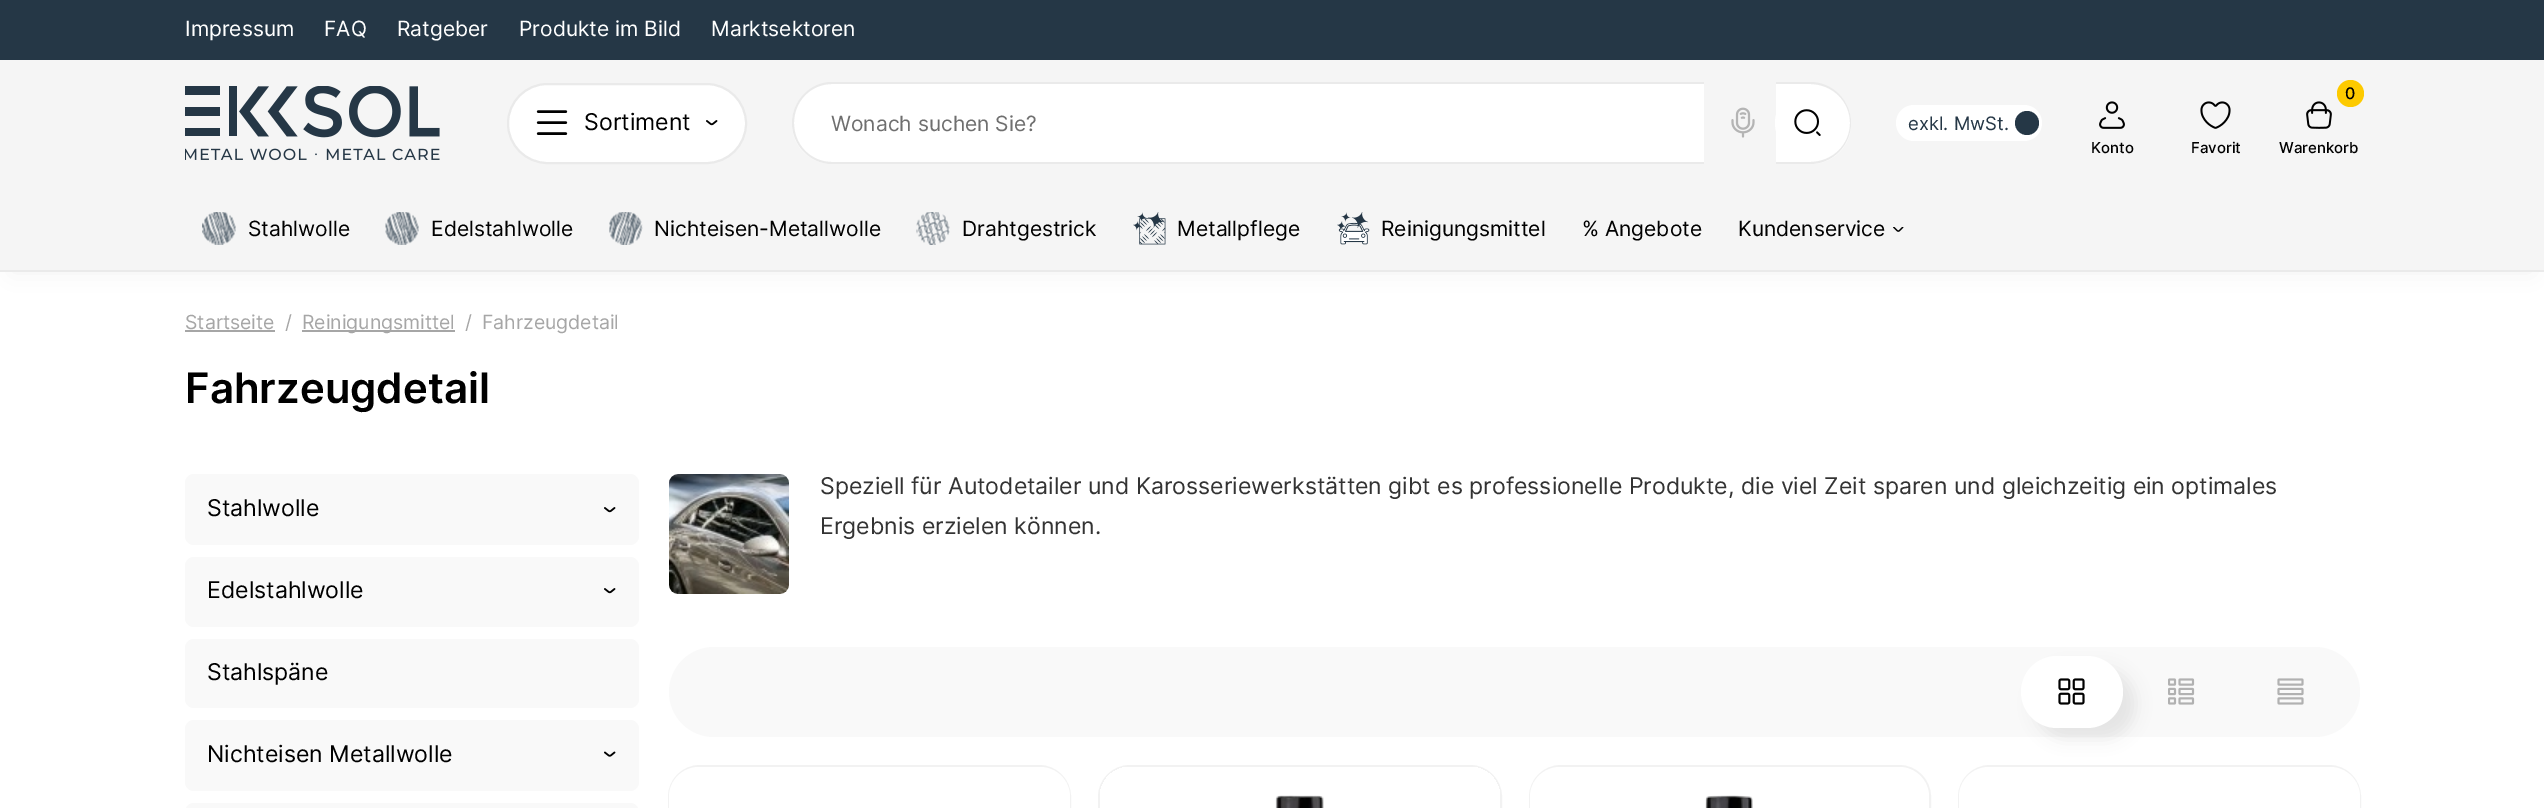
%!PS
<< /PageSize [2544 808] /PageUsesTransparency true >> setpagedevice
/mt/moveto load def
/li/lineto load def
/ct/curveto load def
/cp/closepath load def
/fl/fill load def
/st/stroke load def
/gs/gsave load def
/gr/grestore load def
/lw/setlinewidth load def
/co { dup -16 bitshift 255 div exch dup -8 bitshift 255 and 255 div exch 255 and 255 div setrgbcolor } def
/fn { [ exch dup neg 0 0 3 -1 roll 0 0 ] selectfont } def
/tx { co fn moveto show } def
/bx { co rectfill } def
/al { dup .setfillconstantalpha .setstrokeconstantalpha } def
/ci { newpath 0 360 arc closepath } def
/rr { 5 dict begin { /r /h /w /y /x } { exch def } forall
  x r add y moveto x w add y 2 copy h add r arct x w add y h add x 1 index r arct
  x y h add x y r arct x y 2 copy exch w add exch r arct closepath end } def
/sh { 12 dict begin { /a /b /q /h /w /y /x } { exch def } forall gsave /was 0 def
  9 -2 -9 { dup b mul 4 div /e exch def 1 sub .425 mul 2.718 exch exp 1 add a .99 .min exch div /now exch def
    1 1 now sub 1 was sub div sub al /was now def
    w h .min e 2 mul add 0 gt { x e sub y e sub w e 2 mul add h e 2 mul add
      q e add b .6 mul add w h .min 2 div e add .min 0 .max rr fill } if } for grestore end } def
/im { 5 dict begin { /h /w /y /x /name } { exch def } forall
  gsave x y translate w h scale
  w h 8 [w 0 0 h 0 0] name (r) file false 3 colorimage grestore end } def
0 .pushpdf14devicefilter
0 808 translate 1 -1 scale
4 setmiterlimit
0 0 2544 808 16#FFFFFF bx
0 0 2544 60 16#253746 bx
16#000000 co
12 84 2520 188 0 12 .06 sh
0 60 2544 210 16#F5F5F5 bx
0 270 2544 2 16#EAEAEA bx
(media/1.raw) 185 86 255 75 im
16#FFFFFF co
508 84 238 79 39.5 rr gs fl gr
16#EAEAEA co
2 lw
st
(media/2.raw) 536 110 32 25 im
(media/3.raw) 706 120 12 6 im
16#FFFFFF co
832.5 83 mt 1704 83 li 1704 164 li 832.5 164 li 810 164 792 146 792 123.5 ct 792 101 810 83 832.5 83 ct cp fl
16#EAEAEA co
832 82 mt 1704 82 li 1704 164 li 832 164 li 810 164 792 145 792 123 ct 792 101 810 82 832 82 ct cp 832 84 mt 1704 84 li 1704 162 li 832 162 li 811 162 794 145 794 123 ct 794 101 811 84 832 84 ct cp eofill
(media/4.raw) 1731 107 24 31 im
16#FFFFFF co
1776 83 mt 1810.5 83 li 1833 83 1851 101 1851 123.5 ct 1851 146 1833 164 1810.5 164 ct 1776 164 li cp fl
16#EAEAEA co
1776 82 mt 1810 82 li 1833 82 1851 101 1851 123 ct 1851 145 1833 164 1810 164 ct 1776 164 li cp 1776 84 mt 1810 84 li 1832 84 1850 101 1850 123 ct 1850 145 1832 162 1810 162 ct 1776 162 li cp eofill
16#FFFFFF co
1808 123 33 ci fl
(media/5.raw) 1794 109 27 27 im
1896 105 146 36 18 rr fl
16#253746 co
2027 123 12 ci fl
16#FDCA00 co
2350.5 93.5 13.5 ci fl
(media/6.raw) 2306 101 26 28 im
(media/7.raw) 2099 101 26 28 im
(media/8.raw) 2200 101 31 28 im
(media/9.raw) 202 212 34 33 im
(media/10.raw) 385 212 34 33 im
(media/11.raw) 609 212 34 33 im
(media/12.raw) 916 212 34 33 im
(media/13.raw) 1133 212 33 33 im
(media/14.raw) 1337 212 33 33 im
(media/15.raw) 1893 227 11 5 im
185 330 90 2 16#A6A6A6 bx
302 330 153 2 16#A6A6A6 bx
16#F9F9F9 co
185 474 454 71 9 rr fl
(media/16.raw) 604 507 12 6 im
185 557 454 70 9 rr fl
(media/16.raw) 604 588 12 6 im
185 639 454 69 9 rr fl
185 720 454 71 9 rr fl
(media/17.raw) 604 751 12 6 im
185 803 454 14 9 rr fl
(media/18.raw) 669 474 120 120 im
669 647 1691 90 45 rr fl
16#000000 co
2034 668 102 72 36 7.5 .07 sh
16#FFFFFF co
2021 656 102 72 36 rr fl
(media/19.raw) 2058 678 27 27 im
(media/20.raw) 2168 678 27 27 im
(media/21.raw) 2277 678 27 27 im
16#F2F2F2 co
669 766 401 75 31 rr st
16#FFFFFF co
669 767 401 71 30 rr fl
16#F2F2F2 co
1099 766 402 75 31 rr st
gs
1100 767 400 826 30 rr clip newpath
16#FFFFFF co
1122 759 mt 1478 759 li 1494.5 759 1508 772.5 1508 789 ct 1508 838 li 1092 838 li 1092 789 li 1092 772.5 1105.5 759 1122 759 ct cp fl
gr
(media/22.raw) 1275 795 49 13 im
1530 766 400 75 31 rr st
16#FFFFFF co
1530 767 399 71 30 rr fl
(media/23.raw) 1705 795 48 13 im
16#F2F2F2 co
1959 766 401 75 31 rr st
16#FFFFFF co
1959 767 401 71 30 rr fl
(Impressum) 185 36 /Inter-Regular 21 16#FFFFFF tx
(FAQ) 324 36 /Inter-Regular 21 16#FFFFFF tx
(Ratgeber) 397 36 /Inter-Regular 21 16#FFFFFF tx
(Produkte im Bild) 519 36 /Inter-Regular 21 16#FFFFFF tx
(Marktsektoren) 711 36 /Inter-Regular 21 16#FFFFFF tx
(Sortiment) 584 130 /Inter-Regular 23.1 16#000000 tx
(Wonach suchen Sie?) 831 131 /Inter-Regular 21 16#6F6F6F tx
(exkl. MwSt.) 1908 130 /Inter-Regular 18.5 16#253746 tx
(0) 2345 99 /Inter-Medium 16 16#000000 tx
(Warenkorb) 2279 153 /Inter-Medium 15 16#000000 tx
(Konto) 2091 153 /Inter-Medium 15 16#000000 tx
(Favorit) 2191 153 /Inter-Medium 15 16#000000 tx
(Stahlwolle) 248 236 /Inter-Regular 21 16#000000 tx
(Edelstahlwolle) 431 236 /Inter-Regular 21 16#000000 tx
(Nichteisen-Metallwolle) 654 236 /Inter-Regular 21 16#000000 tx
(Drahtgestrick) 962 236 /Inter-Regular 21 16#000000 tx
(Metallpflege) 1177 236 /Inter-Regular 21 16#000000 tx
(Reinigungsmittel) 1381 236 /Inter-Regular 21 16#000000 tx
(% Angebote) 1582 236 /Inter-Regular 21 16#000000 tx
(Kundenservice) 1738 236 /Inter-Regular 21 16#000000 tx
(Startseite) 185 329 /Inter-Regular 19.5 16#A6A6A6 tx
(/) 285 329 /Inter-Regular 19.5 16#A6A6A6 tx
(Reinigungsmittel) 302 329 /Inter-Regular 19.5 16#A6A6A6 tx
(/) 465 329 /Inter-Regular 19.5 16#A6A6A6 tx
(Fahrzeugdetail) 482 329 /Inter-Regular 19.5 16#A6A6A6 tx
(Fahrzeugdetail) 185 403 /Inter-SemiBold 42 16#000000 tx
(Stahlwolle) 207 516 /Inter-Regular 23.1 16#000000 tx
(Edelstahlwolle) 207 598 /Inter-Regular 23.1 16#000000 tx
(Stahlspäne) 207 680 /Inter-Regular 23.1 16#000000 tx
(Nichteisen Metallwolle) 207 762 /Inter-Regular 23.1 16#000000 tx
(Speziell für Autodetailer und Karosseriewerkstätten gibt es professionelle Produkte, die viel Zeit sparen und gleichzeitig ein optimales) 820 494 /Inter-Regular 23.1 16#333333 tx
(Ergebnis erzielen können.) 820 534 /Inter-Regular 23.1 16#333333 tx
.poppdf14devicefilter showpage
